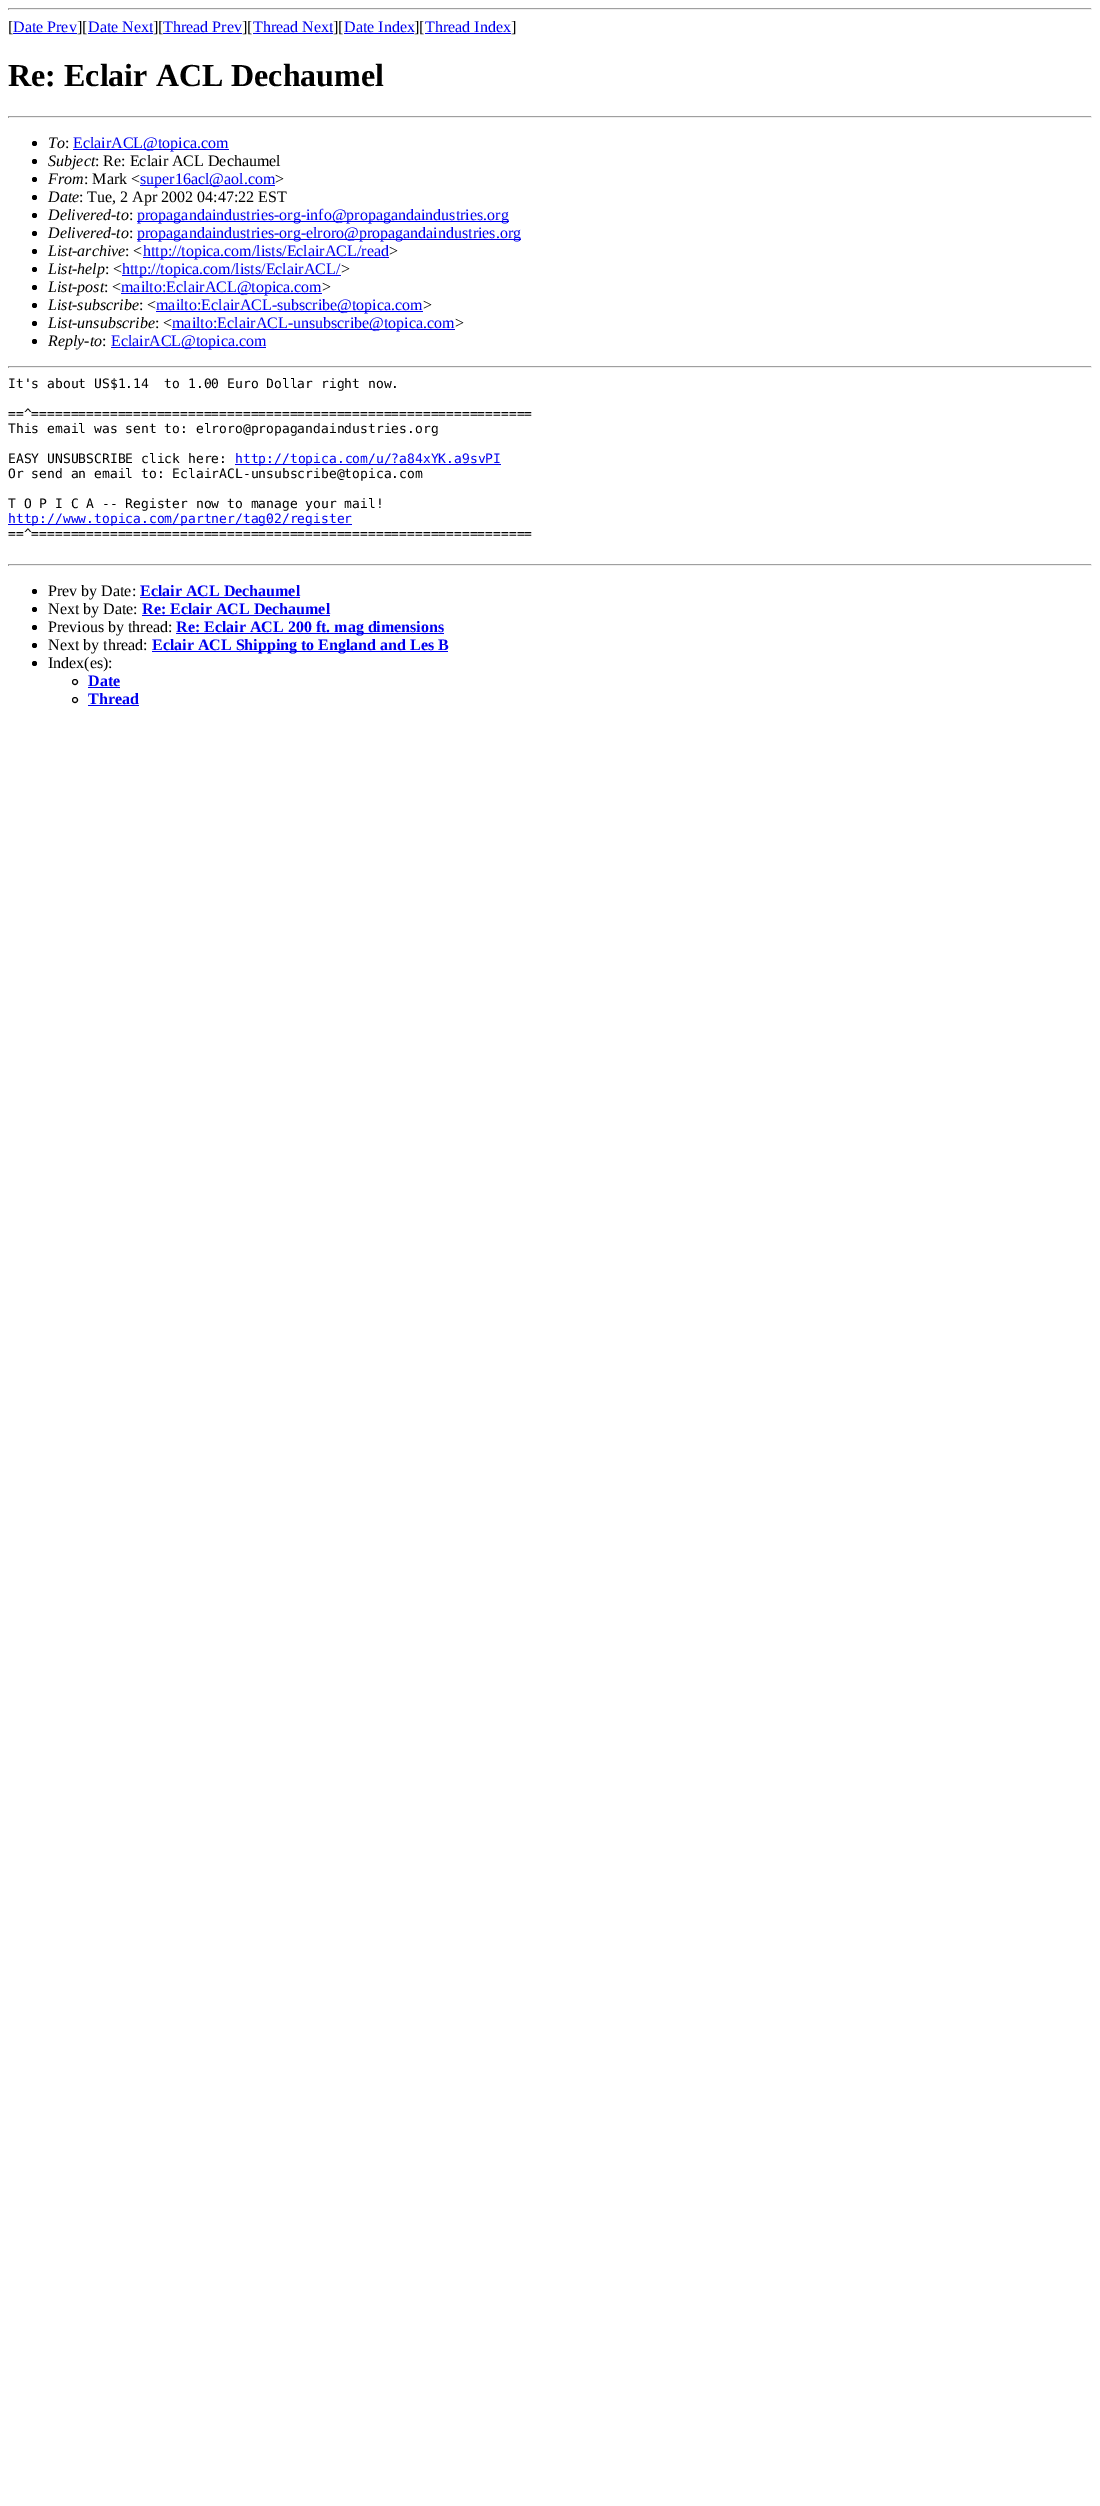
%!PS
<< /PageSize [1100 2506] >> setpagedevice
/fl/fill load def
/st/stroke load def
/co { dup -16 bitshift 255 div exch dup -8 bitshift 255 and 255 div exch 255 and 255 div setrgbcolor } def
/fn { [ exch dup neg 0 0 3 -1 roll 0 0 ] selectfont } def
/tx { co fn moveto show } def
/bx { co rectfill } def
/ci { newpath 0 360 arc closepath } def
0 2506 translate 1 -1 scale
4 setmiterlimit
0 0 1100 2506 16#FFFFFF bx
8 8 1084 1 16#9F9F9F bx
1091 8 1 2 16#EEEEEE bx
8 9 1084 1 16#EEEEEE bx
8 8 1 2 16#9F9F9F bx
13 33 64 1 16#0000EE bx
88 33 65 1 16#0000EE bx
163 33 79 1 16#0000EE bx
253 33 80 1 16#0000EE bx
344 33 70 1 16#0000EE bx
425 33 86 1 16#0000EE bx
8 116 1084 1 16#9F9F9F bx
1091 116 1 2 16#EEEEEE bx
8 117 1084 1 16#EEEEEE bx
8 116 1 2 16#9F9F9F bx
16#000000 co
34.5 143.5 2.5 ci fl
73 149 156 1 16#0000EE bx
16#000000 co
34.5 161.5 2.5 ci fl
34.5 179.5 2.5 ci fl
140 185 135 1 16#0000EE bx
16#000000 co
34.5 197.5 2.5 ci fl
34.5 215.5 2.5 ci fl
137 221 372 1 16#0000EE bx
16#000000 co
34.5 233.5 2.5 ci fl
137 239 384 1 16#0000EE bx
16#000000 co
34.5 251.5 2.5 ci fl
143 257 246 1 16#0000EE bx
16#000000 co
34.5 269.5 2.5 ci fl
122 275 219 1 16#0000EE bx
16#000000 co
34.5 287.5 2.5 ci fl
121 293 201 1 16#0000EE bx
16#000000 co
34.5 305.5 2.5 ci fl
156 311 267 1 16#0000EE bx
16#000000 co
34.5 323.5 2.5 ci fl
172 329 283 1 16#0000EE bx
16#000000 co
34.5 341.5 2.5 ci fl
111 347 155 1 16#0000EE bx
8 366 1084 1 16#9F9F9F bx
1091 366 1 2 16#EEEEEE bx
8 367 1084 1 16#EEEEEE bx
8 366 1 2 16#9F9F9F bx
235 464 266 1 16#0000EE bx
8 524 344 1 16#0000EE bx
8 564 1084 1 16#9F9F9F bx
1091 564 1 2 16#EEEEEE bx
8 565 1084 1 16#EEEEEE bx
8 564 1 2 16#9F9F9F bx
16#000000 co
34.5 591.5 2.5 ci fl
140 597 160 1 16#0000EE bx
16#000000 co
34.5 609.5 2.5 ci fl
142 615 188 1 16#0000EE bx
16#000000 co
34.5 627.5 2.5 ci fl
176 633 268 1 16#0000EE bx
16#000000 co
34.5 645.5 2.5 ci fl
152 651 296 1 16#0000EE bx
16#000000 co
34.5 663.5 2.5 ci fl
75 682 2.5 ci st
88 687 32 1 16#0000EE bx
16#000000 co
75 700 2.5 ci st
88 705 51 1 16#0000EE bx
([) 8 32 /LiberationSerif-Regular 16 16#000000 tx
(Date Prev) 13 32 /LiberationSerif-Regular 16 16#0000EE tx
(][) 77 32 /LiberationSerif-Regular 16 16#000000 tx
(Date Next) 88 32 /LiberationSerif-Regular 16 16#0000EE tx
(][) 153 32 /LiberationSerif-Regular 16 16#000000 tx
(Thread Prev) 163 32 /LiberationSerif-Regular 16 16#0000EE tx
(][) 242 32 /LiberationSerif-Regular 16 16#000000 tx
(Thread Next) 253 32 /LiberationSerif-Regular 16 16#0000EE tx
(][) 333 32 /LiberationSerif-Regular 16 16#000000 tx
(Date Index) 344 32 /LiberationSerif-Regular 16 16#0000EE tx
(][) 414 32 /LiberationSerif-Regular 16 16#000000 tx
(Thread Index) 425 32 /LiberationSerif-Regular 16 16#0000EE tx
(]) 511 32 /LiberationSerif-Regular 16 16#000000 tx
(Re: Eclair ACL Dechaumel) 8 86 /LiberationSerif-Bold 32 16#000000 tx
(To) 48 148 /LiberationSerif-Italic 16 16#000000 tx
(:) 65 148 /LiberationSerif-Regular 16 16#000000 tx
(EclairACL@topica.com) 73 148 /LiberationSerif-Regular 16 16#0000EE tx
(Subject) 48 166 /LiberationSerif-Italic 16 16#000000 tx
(: Re: Eclair ACL Dechaumel) 95 166 /LiberationSerif-Regular 16 16#000000 tx
(From) 48 184 /LiberationSerif-Italic 16 16#000000 tx
(: Mark <) 84 184 /LiberationSerif-Regular 16 16#000000 tx
(super16acl@aol.com) 140 184 /LiberationSerif-Regular 16 16#0000EE tx
(>) 275 184 /LiberationSerif-Regular 16 16#000000 tx
(Date) 48 202 /LiberationSerif-Italic 16 16#000000 tx
(: Tue, 2 Apr 2002 04:47:22 EST) 79 202 /LiberationSerif-Regular 16 16#000000 tx
(Delivered-to) 48 220 /LiberationSerif-Italic 16 16#000000 tx
(:) 129 220 /LiberationSerif-Regular 16 16#000000 tx
(propagandaindustries-org-info@propagandaindustries.org) 137 220 /LiberationSerif-Regular 16 16#0000EE tx
(Delivered-to) 48 238 /LiberationSerif-Italic 16 16#000000 tx
(:) 129 238 /LiberationSerif-Regular 16 16#000000 tx
(propagandaindustries-org-elroro@propagandaindustries.org) 137 238 /LiberationSerif-Regular 16 16#0000EE tx
(List-archive) 48 256 /LiberationSerif-Italic 16 16#000000 tx
(: <) 125 256 /LiberationSerif-Regular 16 16#000000 tx
(http://topica.com/lists/EclairACL/read) 143 256 /LiberationSerif-Regular 16 16#0000EE tx
(>) 389 256 /LiberationSerif-Regular 16 16#000000 tx
(List-help) 48 274 /LiberationSerif-Italic 16 16#000000 tx
(: <) 105 274 /LiberationSerif-Regular 16 16#000000 tx
(http://topica.com/lists/EclairACL/) 122 274 /LiberationSerif-Regular 16 16#0000EE tx
(>) 341 274 /LiberationSerif-Regular 16 16#000000 tx
(List-post) 48 292 /LiberationSerif-Italic 16 16#000000 tx
(: <) 104 292 /LiberationSerif-Regular 16 16#000000 tx
(mailto:EclairACL@topica.com) 121 292 /LiberationSerif-Regular 16 16#0000EE tx
(>) 322 292 /LiberationSerif-Regular 16 16#000000 tx
(List-subscribe) 48 310 /LiberationSerif-Italic 16 16#000000 tx
(: <) 139 310 /LiberationSerif-Regular 16 16#000000 tx
(mailto:EclairACL-subscribe@topica.com) 156 310 /LiberationSerif-Regular 16 16#0000EE tx
(>) 423 310 /LiberationSerif-Regular 16 16#000000 tx
(List-unsubscribe) 48 328 /LiberationSerif-Italic 16 16#000000 tx
(: <) 155 328 /LiberationSerif-Regular 16 16#000000 tx
(mailto:EclairACL-unsubscribe@topica.com) 172 328 /LiberationSerif-Regular 16 16#0000EE tx
(>) 455 328 /LiberationSerif-Regular 16 16#000000 tx
(Reply-to) 48 346 /LiberationSerif-Italic 16 16#000000 tx
(:) 102 346 /LiberationSerif-Regular 16 16#000000 tx
(EclairACL@topica.com) 111 346 /LiberationSerif-Regular 16 16#0000EE tx
(It's about US$1.14  to 1.00 Euro Dollar right now.) 8 388 /DejaVuSansMono-Regular 13 16#000000 tx
(==^================================================================) 8 418 /DejaVuSansMono-Regular 13 16#000000 tx
(This email was sent to: elroro@propagandaindustries.org) 8 433 /DejaVuSansMono-Regular 13 16#000000 tx
(EASY UNSUBSCRIBE click here:) 8 463 /DejaVuSansMono-Regular 13 16#000000 tx
(http://topica.com/u/?a84xYK.a9svPI) 235 463 /DejaVuSansMono-Regular 13 16#0000EE tx
(Or send an email to: EclairACL-unsubscribe@topica.com) 8 478 /DejaVuSansMono-Regular 13 16#000000 tx
(T O P I C A -- Register now to manage your mail!) 8 508 /DejaVuSansMono-Regular 13 16#000000 tx
(http://www.topica.com/partner/tag02/register) 8 523 /DejaVuSansMono-Regular 13 16#0000EE tx
(==^================================================================) 8 538 /DejaVuSansMono-Regular 13 16#000000 tx
(Prev by Date:) 48 596 /LiberationSerif-Regular 16 16#000000 tx
(Eclair ACL Dechaumel) 140 596 /LiberationSerif-Bold 16 16#0000EE tx
(Next by Date:) 48 614 /LiberationSerif-Regular 16 16#000000 tx
(Re: Eclair ACL Dechaumel) 142 614 /LiberationSerif-Bold 16 16#0000EE tx
(Previous by thread:) 48 632 /LiberationSerif-Regular 16 16#000000 tx
(Re: Eclair ACL 200 ft. mag dimensions) 176 632 /LiberationSerif-Bold 16 16#0000EE tx
(Next by thread:) 48 650 /LiberationSerif-Regular 16 16#000000 tx
(Eclair ACL Shipping to England and Les B) 152 650 /LiberationSerif-Bold 16 16#0000EE tx
(Index\(es\):) 48 668 /LiberationSerif-Regular 16 16#000000 tx
(Date) 88 686 /LiberationSerif-Bold 16 16#0000EE tx
(Thread) 88 704 /LiberationSerif-Bold 16 16#0000EE tx
showpage
